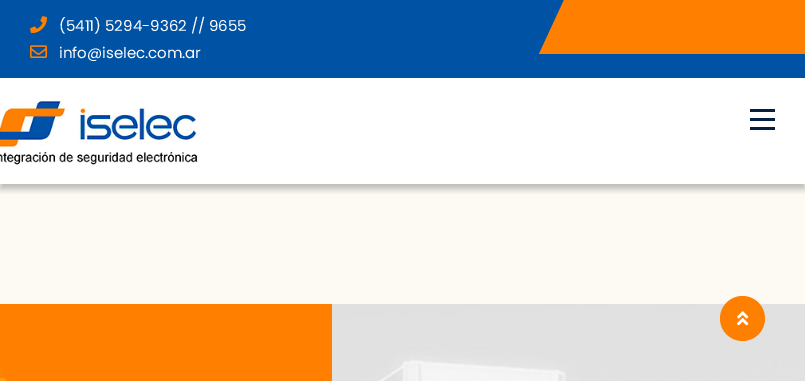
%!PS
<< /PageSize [805 381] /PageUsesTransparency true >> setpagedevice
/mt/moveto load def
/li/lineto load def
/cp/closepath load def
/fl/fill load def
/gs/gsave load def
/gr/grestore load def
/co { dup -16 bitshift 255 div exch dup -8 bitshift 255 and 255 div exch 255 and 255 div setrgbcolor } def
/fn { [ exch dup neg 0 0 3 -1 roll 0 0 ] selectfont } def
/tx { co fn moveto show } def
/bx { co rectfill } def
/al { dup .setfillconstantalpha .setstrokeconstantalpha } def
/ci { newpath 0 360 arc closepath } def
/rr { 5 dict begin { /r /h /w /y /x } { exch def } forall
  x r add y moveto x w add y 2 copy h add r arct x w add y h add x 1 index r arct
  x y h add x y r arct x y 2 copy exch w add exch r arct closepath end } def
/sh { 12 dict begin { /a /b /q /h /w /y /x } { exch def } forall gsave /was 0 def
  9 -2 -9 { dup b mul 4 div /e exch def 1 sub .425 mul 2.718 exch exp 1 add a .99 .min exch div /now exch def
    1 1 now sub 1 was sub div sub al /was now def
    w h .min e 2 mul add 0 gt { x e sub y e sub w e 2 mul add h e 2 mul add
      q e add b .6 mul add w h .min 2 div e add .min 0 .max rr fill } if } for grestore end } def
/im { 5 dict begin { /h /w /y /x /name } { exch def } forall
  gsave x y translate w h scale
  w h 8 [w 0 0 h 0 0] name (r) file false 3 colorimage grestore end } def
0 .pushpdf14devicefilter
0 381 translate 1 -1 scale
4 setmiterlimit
0 0 805 381 16#FFFFFF bx
0 0 805 78 16#0052A4 bx
(media/1.raw) 30 16 17 18 im
(media/2.raw) 30 45 17 13 im
16#FF7F00 co
805 54 mt 539 54 li 564 0 li 805 0 li cp fl
0 184 805 120 16#FDFAF4 bx
gs
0 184 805 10 rectclip
16#000000 co
0 83 805 106 0 3.5 .25 sh
gr
(media/3.raw) 0 101 198 64 im
750 109 25 3 16#032043 bx
750 118 25 3 16#032043 bx
750 127 25 3 16#032043 bx
0 304 332 77 16#FF7F00 bx
(media/4.raw) 332 304 473 77 im
(media/5.raw) 0 372 7 9 im
742.5 318.5 22.5 ci fl
(media/6.raw) 737 311 12 15 im
(\(5411\) 5294-9362 // 9655) 59 31 /Poppins-Regular 15 16#FFFFFF tx
(info@iselec.com.ar) 59 58 /Poppins-Regular 15 16#FFFFFF tx
.poppdf14devicefilter showpage
